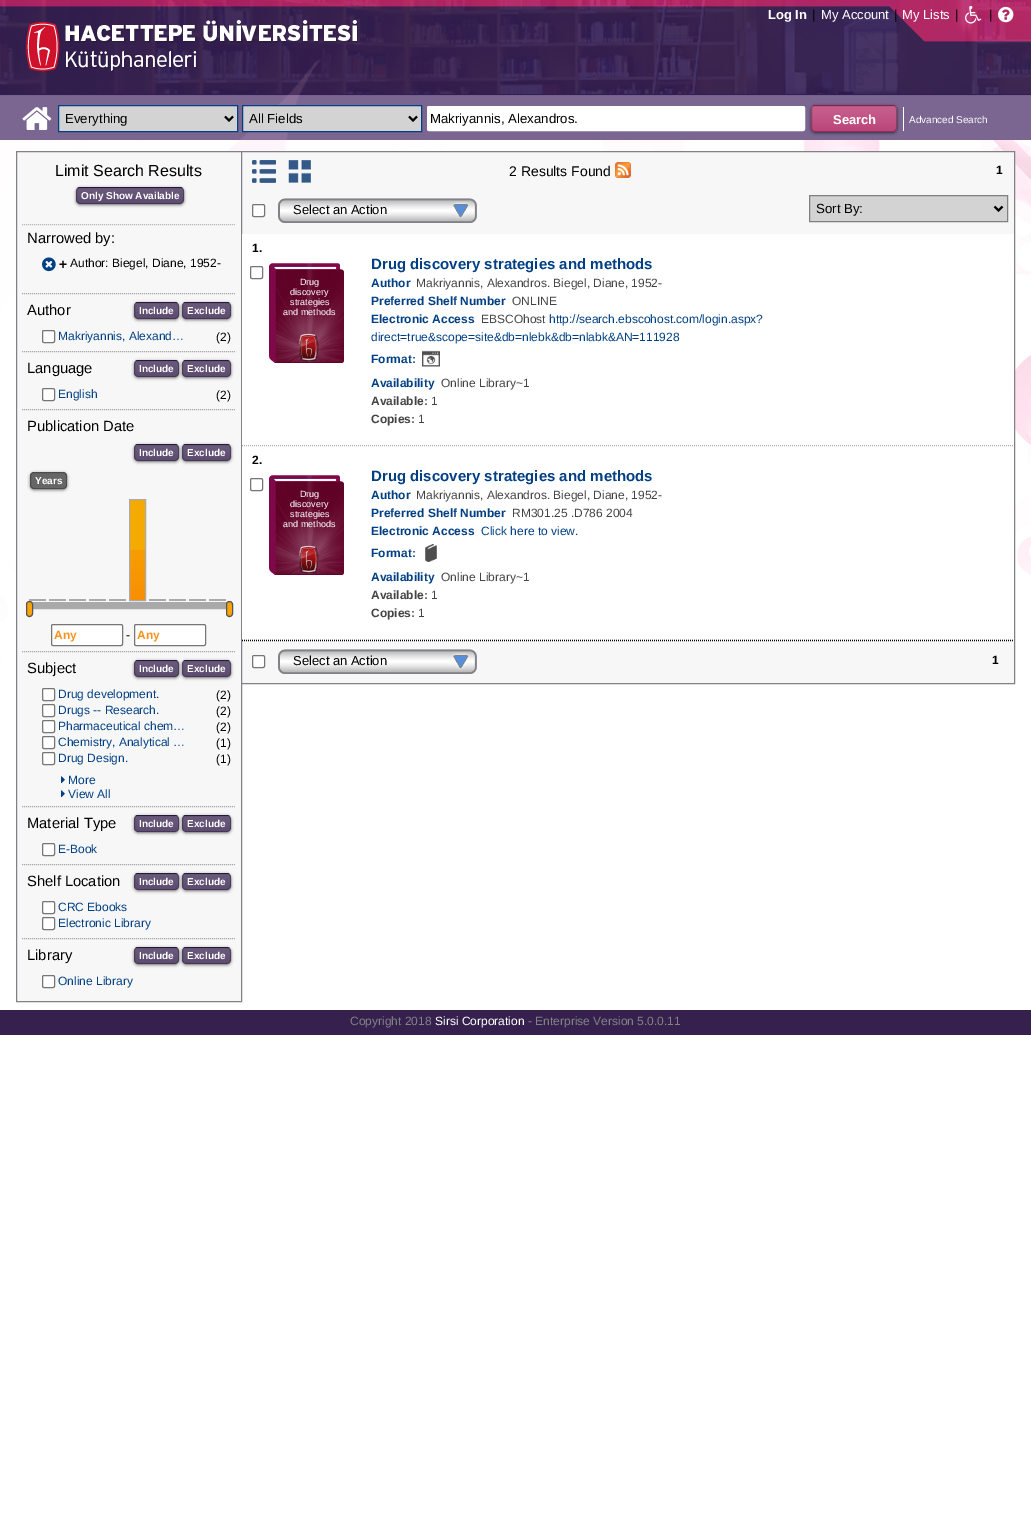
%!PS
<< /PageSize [1031 1532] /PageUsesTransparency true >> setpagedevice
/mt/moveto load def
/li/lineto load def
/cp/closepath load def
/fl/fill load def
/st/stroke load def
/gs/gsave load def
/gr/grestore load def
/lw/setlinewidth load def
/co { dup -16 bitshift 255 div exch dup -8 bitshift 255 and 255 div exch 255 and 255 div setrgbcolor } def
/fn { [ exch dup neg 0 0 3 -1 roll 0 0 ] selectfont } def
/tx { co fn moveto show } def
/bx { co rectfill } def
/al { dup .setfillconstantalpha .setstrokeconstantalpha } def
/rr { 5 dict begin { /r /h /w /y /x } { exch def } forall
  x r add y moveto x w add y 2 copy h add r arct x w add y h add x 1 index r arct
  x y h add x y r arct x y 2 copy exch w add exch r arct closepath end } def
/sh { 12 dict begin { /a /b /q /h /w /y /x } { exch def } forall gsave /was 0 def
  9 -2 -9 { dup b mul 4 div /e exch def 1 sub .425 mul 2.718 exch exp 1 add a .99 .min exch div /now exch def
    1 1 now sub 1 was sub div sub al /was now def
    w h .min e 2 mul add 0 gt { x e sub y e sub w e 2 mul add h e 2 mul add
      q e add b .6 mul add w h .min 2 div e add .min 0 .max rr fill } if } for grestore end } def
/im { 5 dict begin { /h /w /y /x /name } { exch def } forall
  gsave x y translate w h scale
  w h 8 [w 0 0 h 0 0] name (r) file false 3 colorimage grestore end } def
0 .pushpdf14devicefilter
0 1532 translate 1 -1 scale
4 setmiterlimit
0 0 1031 1532 16#FFFFFF bx
(media/1.raw) 0 0 1031 664 im
(media/2.raw) 965 5 17 19 im
(media/3.raw) 998 6 16 17 im
(media/4.raw) 26 20 333 52 im
(media/5.raw) 22 107 30 23 im
16#D3D3D3 co
58.5 105.5 mt 237.5 105.5 li 237.5 131.5 li 58.5 131.5 li cp gs fl gr
16#013F85 co
st
16#000000 co
2 lw
225 116.5 mt 229 120.5 li 233 116.5 li st
16#D3D3D3 co
242.5 105.5 mt 421.5 105.5 li 421.5 131.5 li 242.5 131.5 li cp gs fl gr
16#013F85 co
1 lw
st
16#000000 co
2 lw
409 116.5 mt 413 120.5 li 417 116.5 li st
16#FFFFFF co
427.5 106.5 377 24 1.5 rr gs fl gr
1 lw
st
16#000000 co
811 106 86 27 4 1.5 .5 sh
16#B12865 co
811 105 86 27 4 rr fl
(media/6.raw) 811 106 86 26 im
0.25 al
16#000000 co
811.5 105.5 85 26 3.5 rr st
1 al
903 107 1 24 16#FFFFFF bx
16#F7F7F7 co
16.5 151.5 mt 241.5 151.5 li 241.5 1001.5 li 16.5 1001.5 li cp gs fl gr
16#808285 co
st
16#000000 co
76 188 108 17 4 1.5 .5 sh
16#36214E co
76 187 108 17 4 rr fl
(media/7.raw) 76 188 108 16 im
0.25 al
16#000000 co
76.5 187.5 107 16 3.5 rr st
1 al
16#BBBBBB co
[1 1] 0 setdash
22 224.5 mt 236 224.5 li st
(media/8.raw) 42 257 14 15 im
16#AAAAAA co
22 293.5 mt 236 293.5 li st
16#000000 co
134 303 45 17 4 1.5 .5 sh
16#36214E co
134 302 45 17 4 rr fl
(media/9.raw) 134 303 45 16 im
0.25 al
16#000000 co
[] 0 setdash
134.5 302.5 44 16 3.5 rr st
1 al
182 303 49 17 4 1.5 .5 sh
16#36214E co
182 302 49 17 4 rr fl
(media/10.raw) 182 303 49 16 im
0.25 al
16#000000 co
182.5 302.5 48 16 3.5 rr st
1 al
16#FFFFFF co
42.5 330.5 12 12 1.5 rr gs fl gr
16#767676 co
st
16#AAAAAA co
[1 1] 0 setdash
22 351.5 mt 236 351.5 li st
16#000000 co
134 361 45 17 4 1.5 .5 sh
16#36214E co
134 360 45 17 4 rr fl
(media/9.raw) 134 361 45 16 im
0.25 al
16#000000 co
[] 0 setdash
134.5 360.5 44 16 3.5 rr st
1 al
182 361 49 17 4 1.5 .5 sh
16#36214E co
182 360 49 17 4 rr fl
(media/10.raw) 182 361 49 16 im
0.25 al
16#000000 co
182.5 360.5 48 16 3.5 rr st
1 al
16#FFFFFF co
42.5 388.5 12 12 1.5 rr gs fl gr
16#767676 co
st
16#AAAAAA co
[1 1] 0 setdash
22 409.5 mt 236 409.5 li st
16#000000 co
134 445 45 17 4 1.5 .5 sh
16#36214E co
134 444 45 17 4 rr fl
(media/9.raw) 134 445 45 16 im
0.25 al
16#000000 co
[] 0 setdash
134.5 444.5 44 16 3.5 rr st
1 al
182 445 49 17 4 1.5 .5 sh
16#36214E co
182 444 49 17 4 rr fl
(media/10.raw) 182 445 49 16 im
0.25 al
16#000000 co
182.5 444.5 48 16 3.5 rr st
1 al
30 473 37 17 4 1.5 .5 sh
16#666666 co
30 472 37 17 4 rr fl
0.25 al
16#000000 co
30.5 472.5 36 16 3.5 rr st
1 al
29 599 17 2 16#AAAAAA bx
49 599 17 2 16#AAAAAA bx
69 599 17 2 16#AAAAAA bx
89 599 17 2 16#AAAAAA bx
109 599 17 2 16#AAAAAA bx
130 500 15 50 16#F4AA00 bx
(media/11.raw) 130 550 15 50 im
16#AAAAAA co
129.5 499.5 16 101 rectstroke
149 599 17 2 16#AAAAAA bx
169 599 17 2 16#AAAAAA bx
189 599 17 2 16#AAAAAA bx
209 599 17 2 16#AAAAAA bx
28.5 602.5 201 6 rectstroke
29 603 200 5 16#A9A9A9 bx
16#FFA406 co
26.5 601.5 6 15 3 rr gs fl gr
16#555555 co
st
16#FFA406 co
226.5 601.5 6 15 3 rr gs fl gr
16#555555 co
st
16#FFFFFF co
51.5 624.5 71 21 1.5 rr gs fl gr
16#767676 co
st
16#FFFFFF co
134.5 624.5 71 21 1.5 rr gs fl gr
16#767676 co
st
16#AAAAAA co
[1 1] 0 setdash
22 651.5 mt 236 651.5 li st
16#000000 co
134 661 45 17 4 1.5 .5 sh
16#36214E co
134 660 45 17 4 rr fl
(media/9.raw) 134 661 45 16 im
0.25 al
16#000000 co
[] 0 setdash
134.5 660.5 44 16 3.5 rr st
1 al
182 661 49 17 4 1.5 .5 sh
16#36214E co
182 660 49 17 4 rr fl
(media/10.raw) 182 661 49 16 im
0.25 al
16#000000 co
182.5 660.5 48 16 3.5 rr st
1 al
16#FFFFFF co
42.5 688.5 12 12 1.5 rr gs fl gr
16#767676 co
st
16#FFFFFF co
42.5 704.5 12 12 1.5 rr gs fl gr
16#767676 co
st
16#FFFFFF co
42.5 720.5 12 12 1.5 rr gs fl gr
16#767676 co
st
16#FFFFFF co
42.5 736.5 12 12 1.5 rr gs fl gr
16#767676 co
st
16#FFFFFF co
42.5 752.5 12 12 1.5 rr gs fl gr
16#767676 co
st
(media/12.raw) 61 776 4 8 im
(media/12.raw) 61 790 4 8 im
16#AAAAAA co
[1 1] 0 setdash
22 806.5 mt 236 806.5 li st
16#000000 co
134 816 45 17 4 1.5 .5 sh
16#36214E co
134 815 45 17 4 rr fl
(media/9.raw) 134 816 45 16 im
0.25 al
16#000000 co
[] 0 setdash
134.5 815.5 44 16 3.5 rr st
1 al
182 816 49 17 4 1.5 .5 sh
16#36214E co
182 815 49 17 4 rr fl
(media/10.raw) 182 816 49 16 im
0.25 al
16#000000 co
182.5 815.5 48 16 3.5 rr st
1 al
16#FFFFFF co
42.5 843.5 12 12 1.5 rr gs fl gr
16#767676 co
st
16#AAAAAA co
[1 1] 0 setdash
22 864.5 mt 236 864.5 li st
16#000000 co
134 874 45 17 4 1.5 .5 sh
16#36214E co
134 873 45 17 4 rr fl
(media/9.raw) 134 874 45 16 im
0.25 al
16#000000 co
[] 0 setdash
134.5 873.5 44 16 3.5 rr st
1 al
182 874 49 17 4 1.5 .5 sh
16#36214E co
182 873 49 17 4 rr fl
(media/10.raw) 182 874 49 16 im
0.25 al
16#000000 co
182.5 873.5 48 16 3.5 rr st
1 al
16#FFFFFF co
42.5 901.5 12 12 1.5 rr gs fl gr
16#767676 co
st
16#FFFFFF co
42.5 917.5 12 12 1.5 rr gs fl gr
16#767676 co
st
16#AAAAAA co
[1 1] 0 setdash
22 938.5 mt 236 938.5 li st
16#000000 co
134 948 45 17 4 1.5 .5 sh
16#36214E co
134 947 45 17 4 rr fl
(media/9.raw) 134 948 45 16 im
0.25 al
16#000000 co
[] 0 setdash
134.5 947.5 44 16 3.5 rr st
1 al
182 948 49 17 4 1.5 .5 sh
16#36214E co
182 947 49 17 4 rr fl
(media/10.raw) 182 948 49 16 im
0.25 al
16#000000 co
182.5 947.5 48 16 3.5 rr st
1 al
16#FFFFFF co
42.5 975.5 12 12 1.5 rr gs fl gr
16#767676 co
st
16#F7F7F7 co
241.5 151.5 mt 1014.5 151.5 li 1014.5 683.5 li 241.5 683.5 li cp gs fl gr
16#808285 co
st
(media/13.raw) 252 160 24 23 im
(media/14.raw) 288 160 23 23 im
16#FFFFFF co
252.5 204.5 12 12 1.5 rr gs fl gr
16#767676 co
st
(media/15.raw) 278 198 199 25 im
(media/16.raw) 615 162 16 16 im
16#D3D3D3 co
809.5 195.5 mt 1007.5 195.5 li 1007.5 221.5 li 809.5 221.5 li cp gs fl gr
16#808080 co
st
16#000000 co
2 lw
994.5 206.5 mt 998.5 210.5 li 1002.5 206.5 li st
242 234 772 406 16#FFFFFF bx
16#ACACAC co
1 lw
[1 1] 0 setdash
242 445.5 mt 1014 445.5 li st
16#767676 co
[] 0 setdash
250.5 266.5 12 12 1.5 rr st
(media/17.raw) 269 263 75 100 im
(media/18.raw) 422 350 18 17 im
16#ACACAC co
[1 1] 0 setdash
242 639.5 mt 1014 639.5 li st
16#767676 co
[] 0 setdash
250.5 478.5 12 12 1.5 rr st
(media/17.raw) 269 475 75 100 im
(media/19.raw) 425 544 12 18 im
16#000000 co
[1 1] 0 setdash
242 640.5 mt 1014 640.5 li st
16#FFFFFF co
252.5 655.5 12 12 1.5 rr gs fl gr
16#767676 co
[] 0 setdash
st
(media/15.raw) 278 649 199 25 im
0 1010 1031 25 16#36214E bx
(Log In) 768 19 /LiberationSans-Bold 13 16#FFFFFF tx
(|) 812 19 /LiberationSans-Regular 13 16#000000 tx
(My Account) 821 19 /LiberationSans-Regular 13 16#FFFFFF tx
(|) 894 19 /LiberationSans-Regular 13 16#000000 tx
(My Lists) 902 19 /LiberationSans-Regular 13 16#FFFFFF tx
(|) 955 19 /LiberationSans-Regular 13 16#000000 tx
(|) 989 19 /LiberationSans-Regular 13 16#000000 tx
(Everything) 65 123 /LiberationSans-Regular 13.25 16#000000 tx
(All Fields) 249 123 /LiberationSans-Regular 13.25 16#000000 tx
(Makriyannis, Alexandros.) 430 123 /LiberationSans-Regular 13.25 16#000000 tx
(Search) 833 124 /LiberationSans-Bold 13 16#FFFFFF tx
(Advanced Search) 909 123 /LiberationSans-Regular 10 16#FFFFFF tx
(Limit Search Results) 55 176 /LiberationSans-Regular 16 16#000000 tx
(Only Show Available) 81 199 /LiberationSans-Bold 10 16#FFFFFF tx
(Narrowed by:) 27 243 /LiberationSans-Regular 14.75 16#000000 tx
(+) 59 269 /LiberationSans-Bold 14 16#000000 tx
(Author: Biegel, Diane, 1952-) 70 267 /LiberationSans-Regular 12 16#000000 tx
(Author) 27 315 /LiberationSans-Regular 14.75 16#000000 tx
(Include) 139 314 /LiberationSans-Bold 10 16#FFFFFF tx
(Exclude) 187 314 /LiberationSans-Bold 10 16#FFFFFF tx
(Makriyannis, Alexand…) 58 340 /LiberationSans-Regular 12 16#013F85 tx
(\(2\)) 216 341 /LiberationSans-Regular 12 16#000000 tx
(Language) 27 373 /LiberationSans-Regular 14.75 16#000000 tx
(Include) 139 372 /LiberationSans-Bold 10 16#FFFFFF tx
(Exclude) 187 372 /LiberationSans-Bold 10 16#FFFFFF tx
(English) 58 398 /LiberationSans-Regular 12 16#013F85 tx
(\(2\)) 216 399 /LiberationSans-Regular 12 16#000000 tx
(Publication Date) 27 431 /LiberationSans-Regular 14.75 16#000000 tx
(Include) 139 456 /LiberationSans-Bold 10 16#FFFFFF tx
(Exclude) 187 456 /LiberationSans-Bold 10 16#FFFFFF tx
(Years) 35 484 /LiberationSans-Bold 10 16#FFFFFF tx
(Any) 54 639 /LiberationSans-Bold 12 16#F6931F tx
(-) 126 639 /LiberationSans-Regular 12 16#000000 tx
(Any) 137 639 /LiberationSans-Bold 12 16#F6931F tx
(Subject) 27 673 /LiberationSans-Regular 14.75 16#000000 tx
(Include) 139 672 /LiberationSans-Bold 10 16#FFFFFF tx
(Exclude) 187 672 /LiberationSans-Bold 10 16#FFFFFF tx
(Drug development.) 58 698 /LiberationSans-Regular 12 16#013F85 tx
(\(2\)) 216 699 /LiberationSans-Regular 12 16#000000 tx
(Drugs -- Research.) 58 714 /LiberationSans-Regular 12 16#013F85 tx
(\(2\)) 216 715 /LiberationSans-Regular 12 16#000000 tx
(Pharmaceutical chem…) 58 730 /LiberationSans-Regular 12 16#013F85 tx
(\(2\)) 216 731 /LiberationSans-Regular 12 16#000000 tx
(Chemistry, Analytical …) 58 746 /LiberationSans-Regular 12 16#013F85 tx
(\(1\)) 216 747 /LiberationSans-Regular 12 16#000000 tx
(Drug Design.) 58 762 /LiberationSans-Regular 12 16#013F85 tx
(\(1\)) 216 763 /LiberationSans-Regular 12 16#000000 tx
(More) 68 784 /LiberationSans-Regular 12 16#013F85 tx
(View All) 68 798 /LiberationSans-Regular 12 16#013F85 tx
(Material Type) 27 828 /LiberationSans-Regular 14.75 16#000000 tx
(Include) 139 827 /LiberationSans-Bold 10 16#FFFFFF tx
(Exclude) 187 827 /LiberationSans-Bold 10 16#FFFFFF tx
(E-Book) 58 853 /LiberationSans-Regular 12 16#013F85 tx
(Shelf Location) 27 886 /LiberationSans-Regular 14.75 16#000000 tx
(Include) 139 885 /LiberationSans-Bold 10 16#FFFFFF tx
(Exclude) 187 885 /LiberationSans-Bold 10 16#FFFFFF tx
(CRC Ebooks) 58 911 /LiberationSans-Regular 12 16#013F85 tx
(Electronic Library) 58 927 /LiberationSans-Regular 12 16#013F85 tx
(Library) 27 960 /LiberationSans-Regular 14.75 16#000000 tx
(Include) 139 959 /LiberationSans-Bold 10 16#FFFFFF tx
(Exclude) 187 959 /LiberationSans-Bold 10 16#FFFFFF tx
(Online Library) 58 985 /LiberationSans-Regular 12 16#013F85 tx
(Select an Action) 293 214 /LiberationSans-Regular 13 16#000000 tx
(2 Results Found) 509 176 /LiberationSans-Regular 14 16#000000 tx
(1) 996 174 /LiberationSans-Bold 12 16#000000 tx
(Sort By:) 816 213 /LiberationSans-Regular 13.25 16#000000 tx
(1.) 252 252 /LiberationSans-Bold 12 16#000000 tx
(Drug) 300 285 /LiberationSans-Regular 9 16#FFFFFF tx
(discovery) 290 295 /LiberationSans-Regular 9 16#FFFFFF tx
(strategies) 290 305 /LiberationSans-Regular 9 16#FFFFFF tx
(and methods) 283 315 /LiberationSans-Regular 9 16#FFFFFF tx
(Drug discovery strategies and methods) 371 269 /LiberationSans-Bold 15 16#013F85 tx
(Author) 371 287 /LiberationSans-Bold 12 16#013F85 tx
(Makriyannis, Alexandros. Biegel, Diane, 1952-) 416 287 /LiberationSans-Regular 12 16#444444 tx
(Preferred Shelf Number) 371 305 /LiberationSans-Bold 12 16#013F85 tx
(ONLINE) 512 305 /LiberationSans-Regular 12 16#444444 tx
(Electronic Access) 371 323 /LiberationSans-Bold 12 16#013F85 tx
(EBSCOhost) 481 323 /LiberationSans-Regular 12 16#444444 tx
(http://search.ebscohost.com/login.aspx?) 549 323 /LiberationSans-Regular 12 16#013F85 tx
(direct=true&scope=site&db=nlebk&db=nlabk&AN=111928) 371 341 /LiberationSans-Regular 12 16#013F85 tx
(Format:) 371 363 /LiberationSans-Bold 12 16#013F85 tx
(Availability) 371 387 /LiberationSans-Bold 12 16#013F85 tx
(Online Library~1) 441 387 /LiberationSans-Regular 12 16#444444 tx
(Available:) 371 405 /LiberationSans-Bold 12 16#444444 tx
(1) 431 405 /LiberationSans-Regular 12 16#444444 tx
(Copies:) 371 423 /LiberationSans-Bold 12 16#444444 tx
(1) 418 423 /LiberationSans-Regular 12 16#444444 tx
(2.) 252 464 /LiberationSans-Bold 12 16#000000 tx
(Drug) 300 497 /LiberationSans-Regular 9 16#FFFFFF tx
(discovery) 290 507 /LiberationSans-Regular 9 16#FFFFFF tx
(strategies) 290 517 /LiberationSans-Regular 9 16#FFFFFF tx
(and methods) 283 527 /LiberationSans-Regular 9 16#FFFFFF tx
(Drug discovery strategies and methods) 371 481 /LiberationSans-Bold 15 16#013F85 tx
(Author) 371 499 /LiberationSans-Bold 12 16#013F85 tx
(Makriyannis, Alexandros. Biegel, Diane, 1952-) 416 499 /LiberationSans-Regular 12 16#444444 tx
(Preferred Shelf Number) 371 517 /LiberationSans-Bold 12 16#013F85 tx
(RM301.25 .D786 2004) 512 517 /LiberationSans-Regular 12 16#444444 tx
(Electronic Access) 371 535 /LiberationSans-Bold 12 16#013F85 tx
(Click here to view.) 481 535 /LiberationSans-Regular 12 16#013F85 tx
(Format:) 371 557 /LiberationSans-Bold 12 16#013F85 tx
(Availability) 371 581 /LiberationSans-Bold 12 16#013F85 tx
(Online Library~1) 441 581 /LiberationSans-Regular 12 16#444444 tx
(Available:) 371 599 /LiberationSans-Bold 12 16#444444 tx
(1) 431 599 /LiberationSans-Regular 12 16#444444 tx
(Copies:) 371 617 /LiberationSans-Bold 12 16#444444 tx
(1) 418 617 /LiberationSans-Regular 12 16#444444 tx
(Select an Action) 293 665 /LiberationSans-Regular 13 16#000000 tx
(1) 992 664 /LiberationSans-Bold 12 16#000000 tx
(Copyright 2018) 350 1025 /LiberationSans-Regular 12 16#808285 tx
(Sirsi Corporation) 435 1025 /LiberationSans-Regular 12 16#FFFFFF tx
(- Enterprise Version 5.0.0.11) 528 1025 /LiberationSans-Regular 12 16#808285 tx
.poppdf14devicefilter showpage
